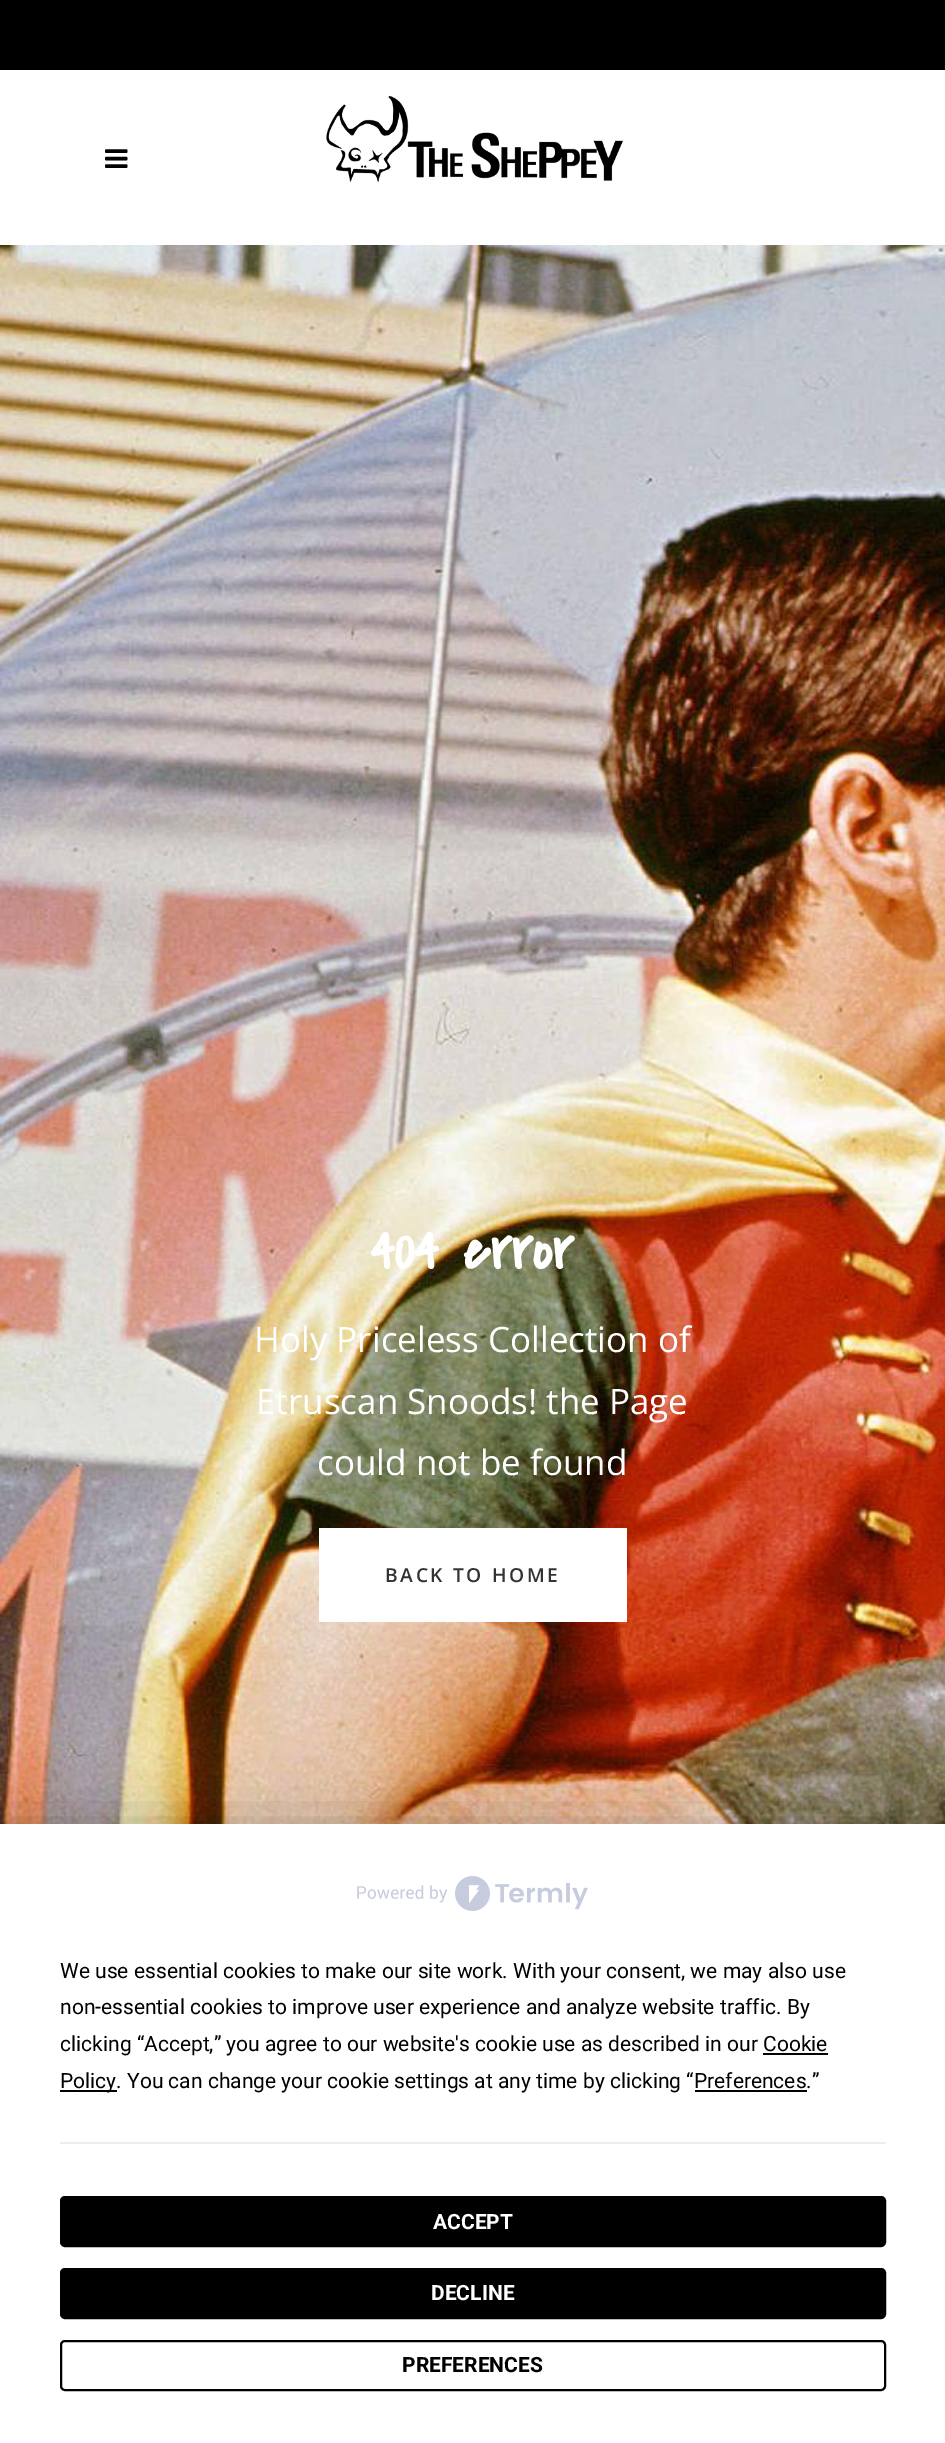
%!PS
<< /PageSize [945 2443] /PageUsesTransparency true >> setpagedevice
/mt/moveto load def
/fl/fill load def
/st/stroke load def
/gs/gsave load def
/gr/grestore load def
/lw/setlinewidth load def
/co { dup -16 bitshift 255 div exch dup -8 bitshift 255 and 255 div exch 255 and 255 div setrgbcolor } def
/fn { [ exch dup neg 0 0 3 -1 roll 0 0 ] selectfont } def
/tx { co fn moveto show } def
/bx { co rectfill } def
/al { dup .setfillconstantalpha .setstrokeconstantalpha } def
/rr { 5 dict begin { /r /h /w /y /x } { exch def } forall
  x r add y moveto x w add y 2 copy h add r arct x w add y h add x 1 index r arct
  x y h add x y r arct x y 2 copy exch w add exch r arct closepath end } def
/sh { 12 dict begin { /a /b /q /h /w /y /x } { exch def } forall gsave /was 0 def
  9 -2 -9 { dup b mul 4 div /e exch def 1 sub .425 mul 2.718 exch exp 1 add a .99 .min exch div /now exch def
    1 1 now sub 1 was sub div sub al /was now def
    w h .min e 2 mul add 0 gt { x e sub y e sub w e 2 mul add h e 2 mul add
      q e add b .6 mul add w h .min 2 div e add .min 0 .max rr fill } if } for grestore end } def
/im { 5 dict begin { /h /w /y /x /name } { exch def } forall
  gsave x y translate w h scale
  w h 8 [w 0 0 h 0 0] name (r) file false 3 colorimage grestore end } def
0 .pushpdf14devicefilter
0 2443 translate 1 -1 scale
4 setmiterlimit
0 0 945 2443 16#FFFFFF bx
0 0 945 70 16#000000 bx
(media/1.raw) 105 149 23 19 im
(media/2.raw) 326 95 297 87 im
(media/3.raw) 0 245 945 1579 im
319 1528 308 94 16#FFFFFF bx
16#000000 co
0 1824 945 619 0 30.5 .25 sh
0 1824 945 619 16#FFFFFF bx
(media/4.raw) 357 1876 231 35 im
763 2053 65 2 16#000000 bx
60 2090 57 2 16#000000 bx
695 2090 112 2 16#000000 bx
60 2142 826 2 16#EDEDEF bx
16#000000 co
61 2197 824 49 4 rr gs fl gr
2 lw
st
61 2269 824 49 4 rr gs fl gr
st
61 2341 824 49 4 rr st
(404 error) 370 1269 /CoveredByYourGrace-Bold 61 16#FFFFFF tx
(Holy Priceless Collection of) 254 1352 /OpenSans-Regular 35 16#FFFFFF tx
(Etruscan Snoods! the Page) 256 1414 /OpenSans-Regular 35 16#FFFFFF tx
(could not be found) 317 1475 /OpenSans-Regular 35 16#FFFFFF tx
/OpenSans-SemiBold 19.25 fn
16#333333 co
385 1582 mt 2.6 0 (BACK TO HOME) ashow
(We use essential cookies to make our site work. With your consent, we may also use) 60 1978 /Roboto-Regular 21 16#000000 tx
(non-essential cookies to improve user experience and analyze website traffic. By) 60 2014 /Roboto-Regular 21 16#000000 tx
(clicking “Accept,” you agree to our website's cookie use as described in our Cookie) 60 2051 /Roboto-Regular 21 16#000000 tx
(Policy. You can change your cookie settings at any time by clicking “Preferences.”) 60 2088 /Roboto-Regular 21 16#000000 tx
(ACCEPT) 433 2229 /Roboto-Bold 21 16#FFFFFF tx
(DECLINE) 431 2300 /Roboto-Bold 21 16#FFFFFF tx
(PREFERENCES) 402 2372 /Roboto-Bold 21 16#000000 tx
.poppdf14devicefilter showpage
